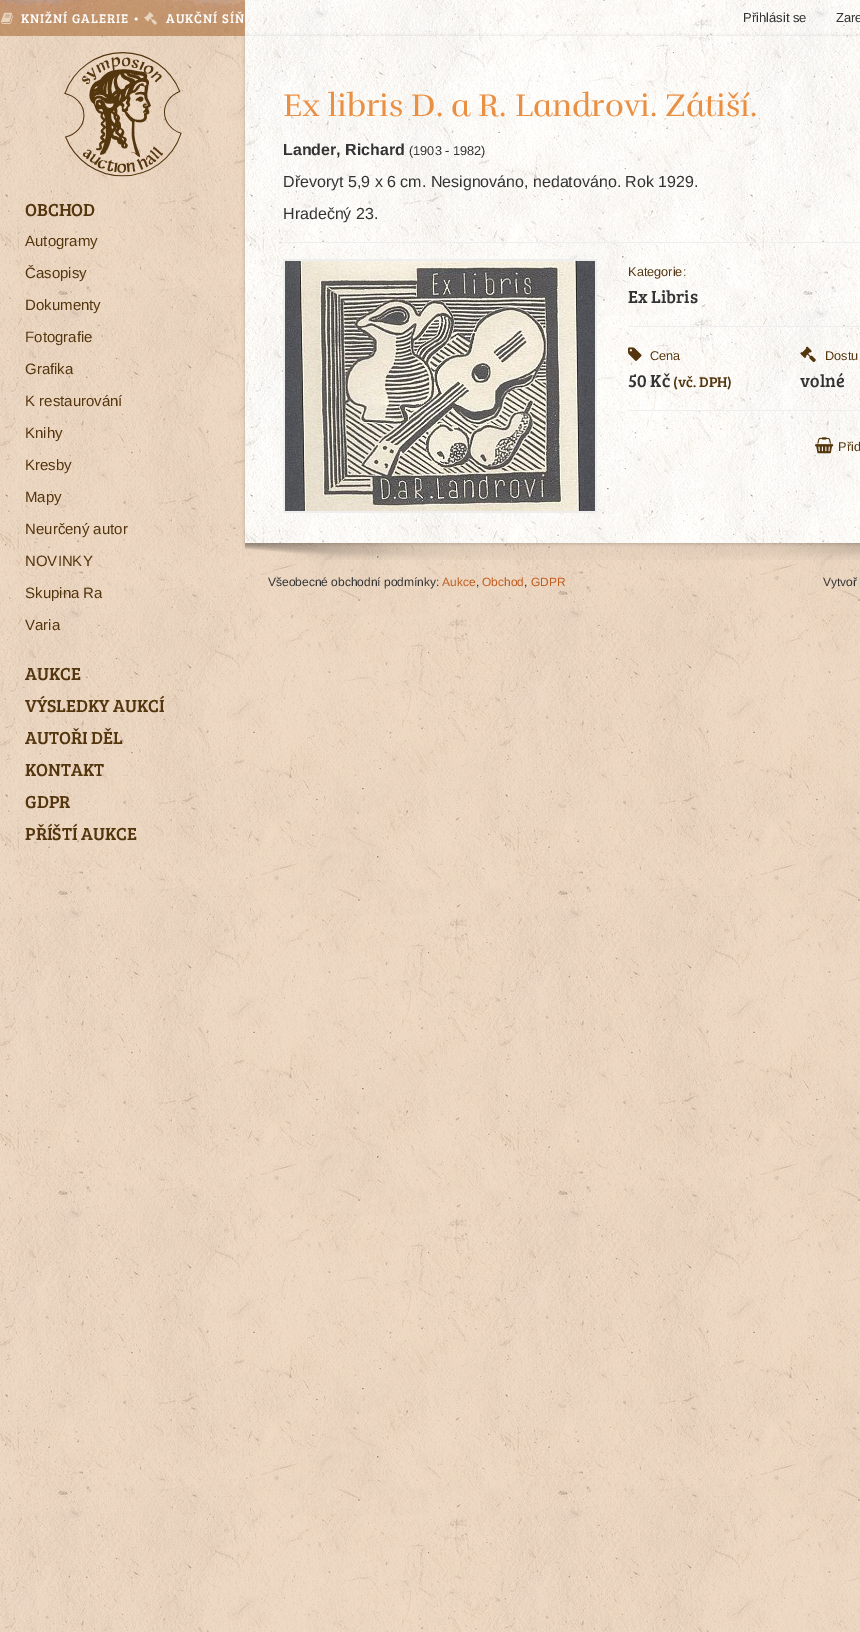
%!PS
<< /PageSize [860 1632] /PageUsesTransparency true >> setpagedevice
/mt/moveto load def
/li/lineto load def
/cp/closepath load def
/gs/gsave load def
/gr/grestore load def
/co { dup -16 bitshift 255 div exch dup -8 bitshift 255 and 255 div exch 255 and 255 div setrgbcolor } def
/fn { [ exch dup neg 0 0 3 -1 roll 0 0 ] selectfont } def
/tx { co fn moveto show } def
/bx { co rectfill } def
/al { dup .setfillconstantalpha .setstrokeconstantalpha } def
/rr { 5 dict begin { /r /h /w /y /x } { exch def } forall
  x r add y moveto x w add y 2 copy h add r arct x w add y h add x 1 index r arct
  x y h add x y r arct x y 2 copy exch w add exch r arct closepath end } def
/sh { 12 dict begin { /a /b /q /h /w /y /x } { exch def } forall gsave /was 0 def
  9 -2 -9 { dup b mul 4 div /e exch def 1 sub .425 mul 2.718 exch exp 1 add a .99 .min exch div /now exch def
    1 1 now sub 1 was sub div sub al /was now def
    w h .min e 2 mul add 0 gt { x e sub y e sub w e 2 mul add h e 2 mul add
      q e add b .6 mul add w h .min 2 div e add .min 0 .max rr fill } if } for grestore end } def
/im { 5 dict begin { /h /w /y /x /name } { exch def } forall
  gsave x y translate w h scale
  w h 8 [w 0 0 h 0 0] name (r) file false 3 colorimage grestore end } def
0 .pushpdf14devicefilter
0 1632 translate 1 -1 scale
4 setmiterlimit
0 0 860 1632 16#FFFFFF bx
(media/1.raw) 0 0 860 1632 im
0.6 al
0 0 245 36 16#A96C37 bx
1 al
(media/2.raw) 0 0 245 36 im
(media/3.raw) 1 12 12 12 im
(media/4.raw) 144 12 13 13 im
(media/5.raw) 64 52 118 125 im
(media/6.raw) 245 0 615 543 im
gs
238 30 mt 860 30 li 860 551 li 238 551 li cp 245 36 mt 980 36 li 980 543 li 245 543 li cp eoclip newpath
16#000000 co
245 37 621 507 0 2 .2 sh
gr
283 242 577 1 16#EEEEEE bx
283 259 314 254 16#EEEEEE bx
(media/7.raw) 285 261 310 250 im
628 326 232 1 16#EEEEEE bx
(media/8.raw) 628 347 14 14 im
(media/9.raw) 800 346 16 17 im
628 410 232 1 16#EEEEEE bx
(media/10.raw) 815 437 19 17 im
(media/11.raw) 245 543 615 17 im
/BreeSerif-Regular 13 fn
16#FFFFFF co
21 23 mt 1 0 (KNIŽNÍ GALERIE •) ashow
166 23 mt 1 0 (AUKČNÍ SÍŇ) ashow
(OBCHOD) 25 216 /BreeSerif-Regular 18 16#53350E tx
(Autogramy) 25 246 /LiberationSans-Regular 15 16#53350E tx
(Časopisy) 25 278 /LiberationSans-Regular 15 16#53350E tx
(Dokumenty) 25 310 /LiberationSans-Regular 15 16#53350E tx
(Fotografie) 25 342 /LiberationSans-Regular 15 16#53350E tx
(Grafika) 25 374 /LiberationSans-Regular 15 16#53350E tx
(K restaurování) 25 406 /LiberationSans-Regular 15 16#53350E tx
(Knihy) 25 438 /LiberationSans-Regular 15 16#53350E tx
(Kresby) 25 470 /LiberationSans-Regular 15 16#53350E tx
(Mapy) 25 502 /LiberationSans-Regular 15 16#53350E tx
(Neurčený autor) 25 534 /LiberationSans-Regular 15 16#53350E tx
(NOVINKY) 25 566 /LiberationSans-Regular 15 16#53350E tx
(Skupina Ra) 25 598 /LiberationSans-Regular 15 16#53350E tx
(Varia) 25 630 /LiberationSans-Regular 15 16#53350E tx
(AUKCE) 25 680 /BreeSerif-Regular 18 16#53350E tx
(VÝSLEDKY AUKCÍ) 25 712 /BreeSerif-Regular 18 16#53350E tx
(AUTOŘI DĚL) 25 744 /BreeSerif-Regular 18 16#53350E tx
(KONTAKT) 25 776 /BreeSerif-Regular 18 16#53350E tx
(GDPR) 25 808 /BreeSerif-Regular 18 16#53350E tx
(PŘÍŠTÍ AUKCE) 25 840 /BreeSerif-Regular 18 16#53350E tx
(Přihlásit se) 743 22 /LiberationSans-Regular 13 16#333333 tx
(Zare) 836 22 /LiberationSans-Regular 13 16#333333 tx
(Ex libris D. a R. Landrovi. Zátiší.) 283 116 /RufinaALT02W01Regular-Regular 32 16#EA9044 tx
(Lander, Richard) 283 155 /LiberationSans-Bold 16 16#333333 tx
(\(1903 - 1982\)) 409 155 /LiberationSans-Regular 12.75 16#333333 tx
(Dřevoryt 5,9 x 6 cm. Nesignováno, nedatováno. Rok 1929.) 283 187 /LiberationSans-Regular 16 16#333333 tx
(Hradečný 23.) 283 219 /LiberationSans-Regular 16 16#333333 tx
(Kategorie:) 628 276 /LiberationSans-Regular 12.75 16#53350E tx
(Ex Libris) 628 303 /BreeSerif-Regular 18 16#333333 tx
(Cena) 650 360 /LiberationSans-Regular 12.75 16#53350E tx
(50 Kč) 628 387 /BreeSerif-Regular 18 16#333333 tx
(\(vč. DPH\)) 673 387 /BreeSerif-Regular 14.5 16#53350E tx
(Dostu) 825 360 /LiberationSans-Regular 12.75 16#53350E tx
(volné) 800 387 /BreeSerif-Regular 18 16#333333 tx
(Přid) 838 451 /LiberationSans-Regular 12.75 16#53350E tx
(Všeobecné obchodní podmínky:) 268 586 /LiberationSans-Regular 12 16#333333 tx
(Aukce) 442 586 /LiberationSans-Regular 12 16#C15B1D tx
(,) 476 586 /LiberationSans-Regular 12 16#333333 tx
(Obchod) 482 586 /LiberationSans-Regular 12 16#C15B1D tx
(,) 524 586 /LiberationSans-Regular 12 16#333333 tx
(GDPR) 531 586 /LiberationSans-Regular 12 16#C15B1D tx
(Vytvoř) 823 586 /LiberationSans-Regular 12 16#333333 tx
.poppdf14devicefilter showpage
